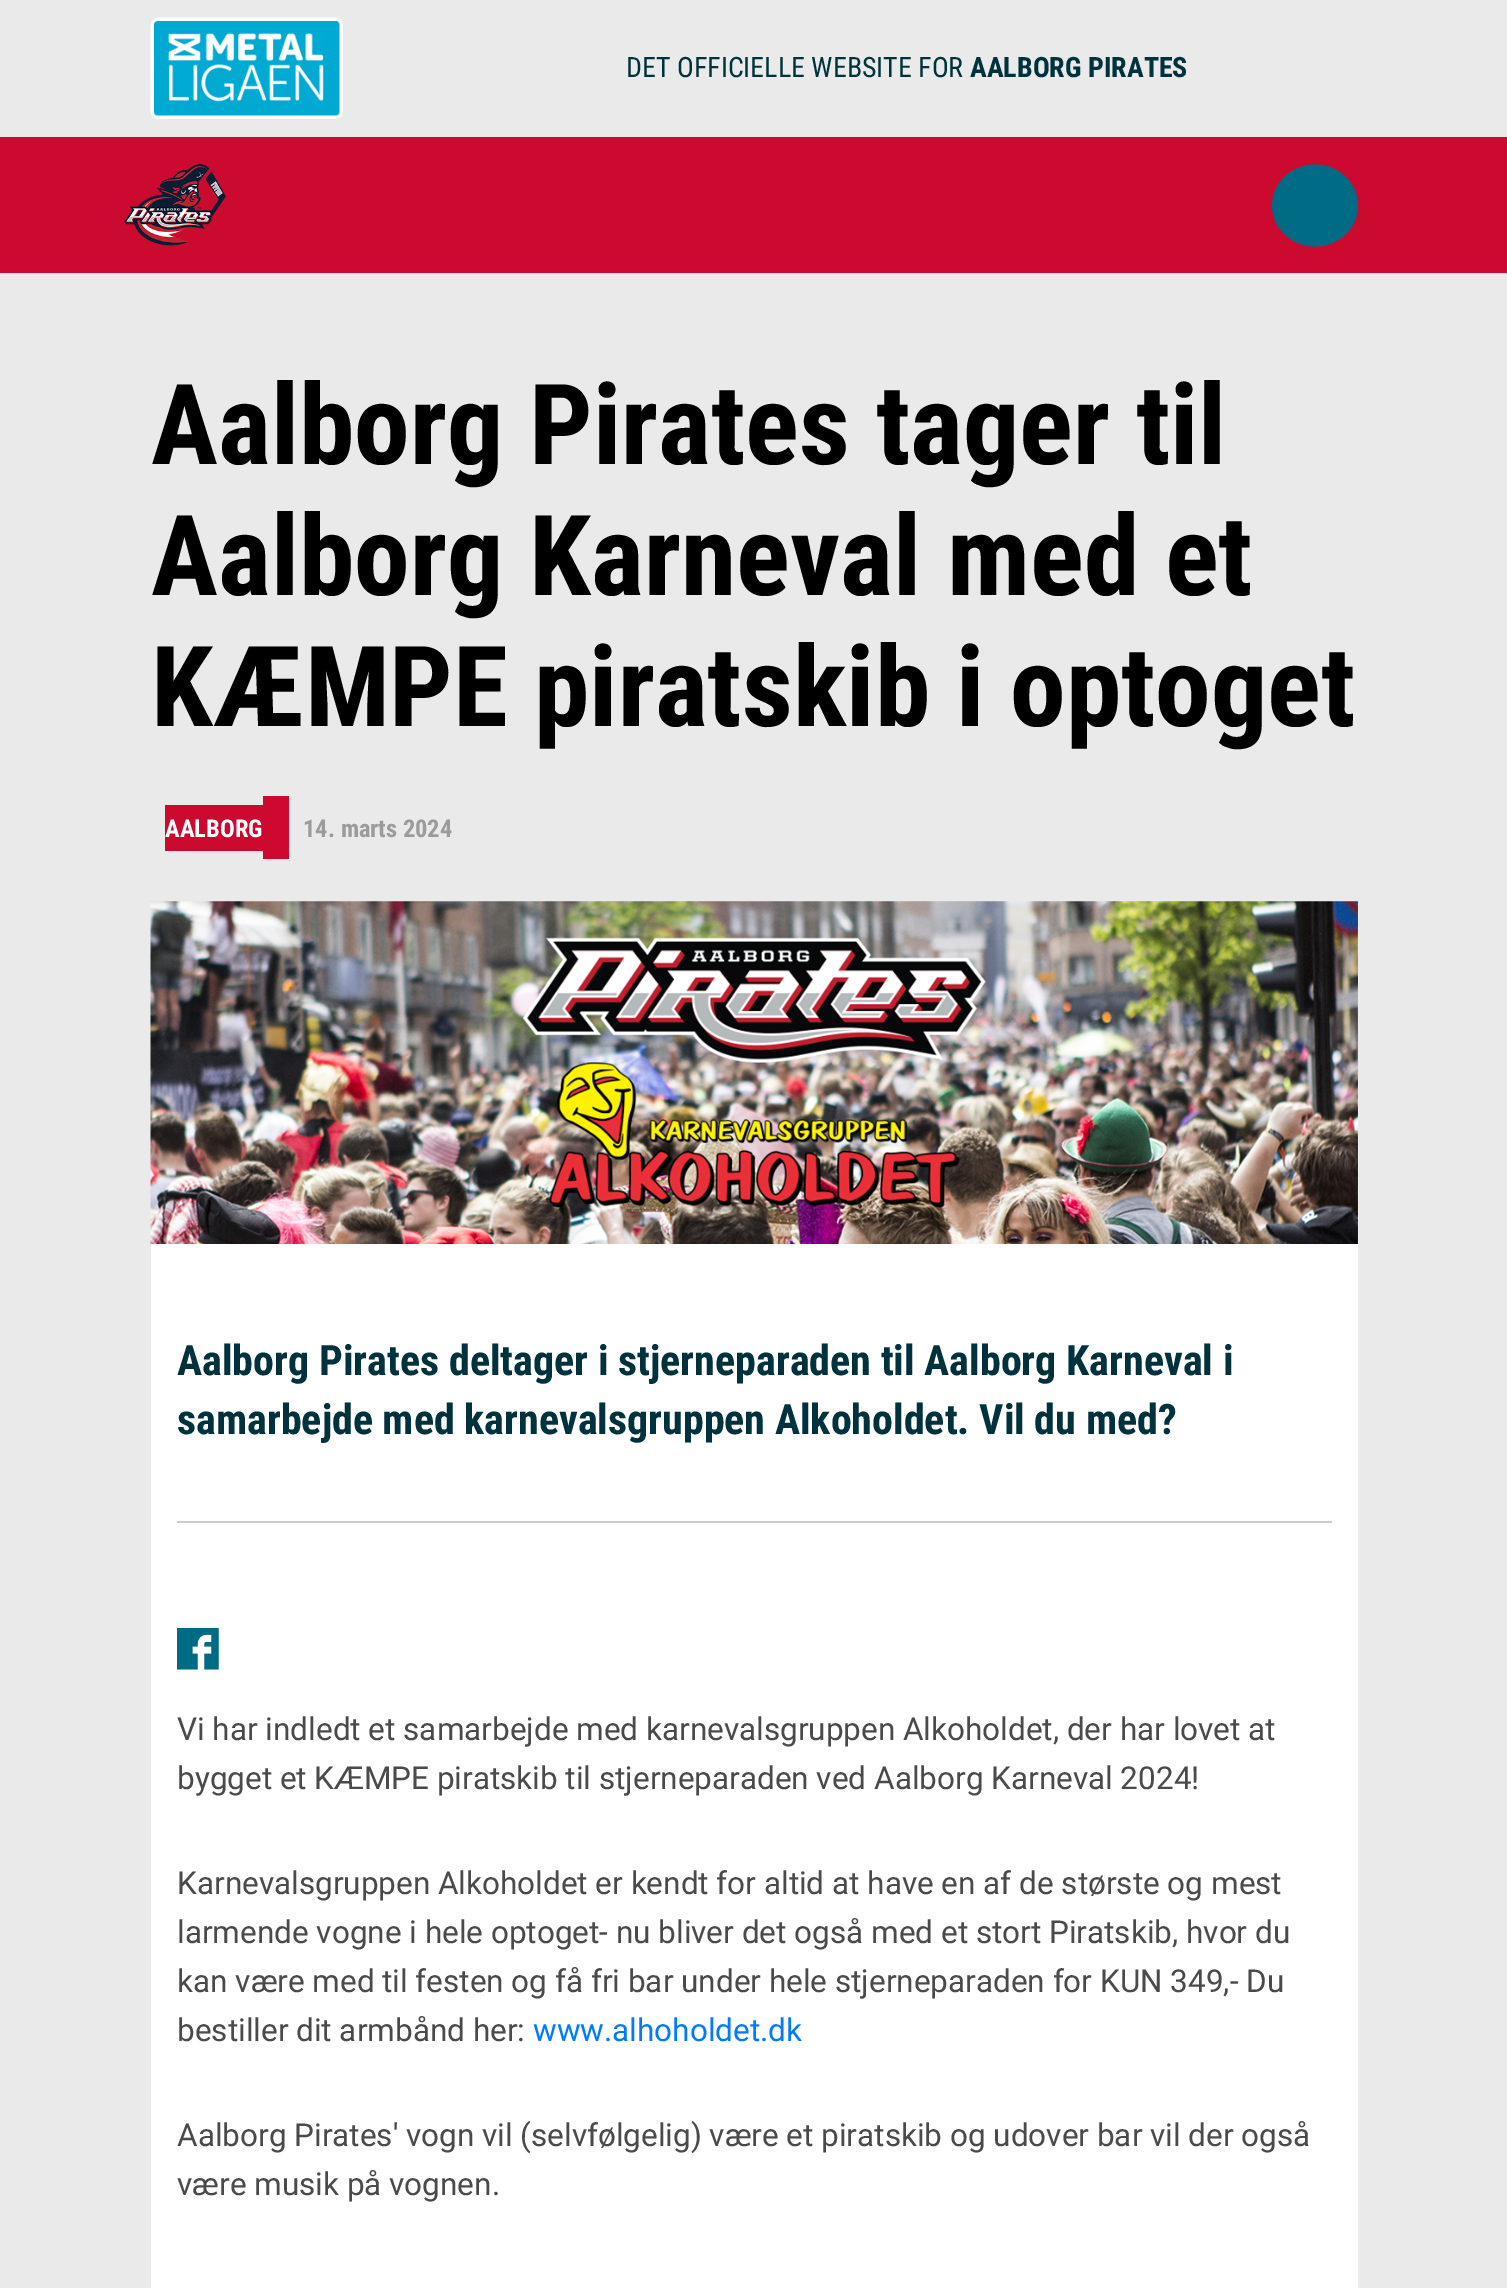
%!PS
<< /PageSize [1507 2288] >> setpagedevice
/mt/moveto load def
/ct/curveto load def
/cp/closepath load def
/fl/fill load def
/co { dup -16 bitshift 255 div exch dup -8 bitshift 255 and 255 div exch 255 and 255 div setrgbcolor } def
/fn { [ exch dup neg 0 0 3 -1 roll 0 0 ] selectfont } def
/tx { co fn moveto show } def
/bx { co rectfill } def
/im { 5 dict begin { /h /w /y /x /name } { exch def } forall
  gsave x y translate w h scale
  w h 8 [w 0 0 h 0 0] name (r) file false 3 colorimage grestore end } def
0 2288 translate 1 -1 scale
4 setmiterlimit
0 0 1507 2288 16#EAEAEA bx
(media/1.raw) 150 17 193 102 im
0 137 1507 136 16#CC092F bx
(media/2.raw) 124 164 102 82 im
16#006B84 co
1315 164.5 mt 1338.5 164.5 1358 183 1358 205.5 ct 1358 228 1338.5 246.5 1315 246.5 ct 1291.5 246.5 1272 228 1272 205.5 ct 1272 183 1291.5 164.5 1315 164.5 ct cp fl
263 796 26 63 16#CC092F bx
165 805 98 46 16#CC092F bx
(media/3.raw) 150 901 1208 344 im
151 1244 1207 1044 16#FFFFFF bx
177 1521 1155 2 16#CCCCCC bx
(media/4.raw) 177 1628 42 42 im
(DET OFFICIELLE WEBSITE FOR) 626 77 /RobotoCondensed-Regular 28 16#00323D tx
(AALBORG PIRATES) 970 77 /RobotoCondensed-Bold 28 16#00323D tx
(Aalborg Pirates tager til) 151 464 /RobotoCondensed-Bold 112 16#000000 tx
(Aalborg Karneval med et) 151 595 /RobotoCondensed-Bold 112 16#000000 tx
(KÆMPE piratskib i optoget) 151 726 /RobotoCondensed-Bold 112 16#000000 tx
(AALBORG) 165 837 /RobotoCondensed-Bold 24.5 16#FFFFFF tx
(14. marts 2024) 303 837 /RobotoCondensed-Bold 24.5 16#9B9B9B tx
(Aalborg Pirates deltager i stjerneparaden til Aalborg Karneval i) 177 1375 /RobotoCondensed-Bold 42 16#00323D tx
(samarbejde med karnevalsgruppen Alkoholdet. Vil du med?) 177 1434 /RobotoCondensed-Bold 42 16#00323D tx
(Vi har indledt et samarbejde med karnevalsgruppen Alkoholdet, der har lovet at) 177 1740 /Roboto-Regular 31.5 16#4A4A4A tx
(bygget et KÆMPE piratskib til stjerneparaden ved Aalborg Karneval 2024!) 177 1789 /Roboto-Regular 31.5 16#4A4A4A tx
(Karnevalsgruppen Alkoholdet er kendt for altid at have en af de største og mest) 177 1894 /Roboto-Regular 31.5 16#4A4A4A tx
(larmende vogne i hele optoget- nu bliver det også med et stort Piratskib, hvor du) 177 1943 /Roboto-Regular 31.5 16#4A4A4A tx
(kan være med til festen og få fri bar under hele stjerneparaden for KUN 349,- Du) 177 1992 /Roboto-Regular 31.5 16#4A4A4A tx
(bestiller dit armbånd her:) 177 2041 /Roboto-Regular 31.5 16#4A4A4A tx
(www.alhoholdet.dk) 533 2041 /Roboto-Regular 31.5 16#007BFF tx
(Aalborg Pirates' vogn vil \(selvfølgelig\) være et piratskib og udover bar vil der også) 177 2146 /Roboto-Regular 31.5 16#4A4A4A tx
(være musik på vognen.) 177 2195 /Roboto-Regular 31.5 16#4A4A4A tx
showpage
